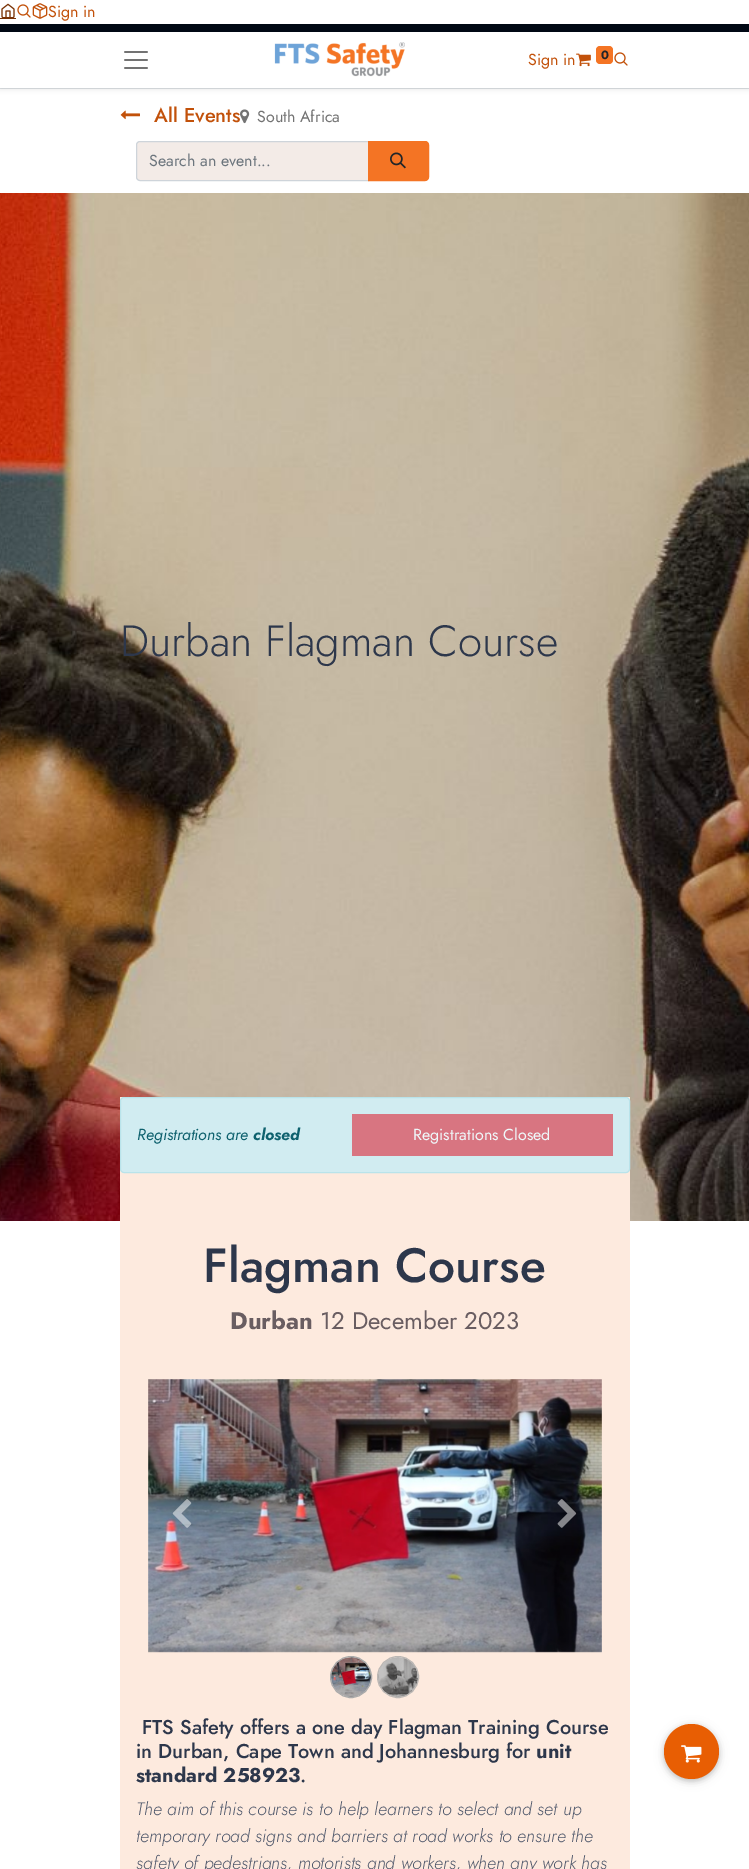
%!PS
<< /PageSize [749 1869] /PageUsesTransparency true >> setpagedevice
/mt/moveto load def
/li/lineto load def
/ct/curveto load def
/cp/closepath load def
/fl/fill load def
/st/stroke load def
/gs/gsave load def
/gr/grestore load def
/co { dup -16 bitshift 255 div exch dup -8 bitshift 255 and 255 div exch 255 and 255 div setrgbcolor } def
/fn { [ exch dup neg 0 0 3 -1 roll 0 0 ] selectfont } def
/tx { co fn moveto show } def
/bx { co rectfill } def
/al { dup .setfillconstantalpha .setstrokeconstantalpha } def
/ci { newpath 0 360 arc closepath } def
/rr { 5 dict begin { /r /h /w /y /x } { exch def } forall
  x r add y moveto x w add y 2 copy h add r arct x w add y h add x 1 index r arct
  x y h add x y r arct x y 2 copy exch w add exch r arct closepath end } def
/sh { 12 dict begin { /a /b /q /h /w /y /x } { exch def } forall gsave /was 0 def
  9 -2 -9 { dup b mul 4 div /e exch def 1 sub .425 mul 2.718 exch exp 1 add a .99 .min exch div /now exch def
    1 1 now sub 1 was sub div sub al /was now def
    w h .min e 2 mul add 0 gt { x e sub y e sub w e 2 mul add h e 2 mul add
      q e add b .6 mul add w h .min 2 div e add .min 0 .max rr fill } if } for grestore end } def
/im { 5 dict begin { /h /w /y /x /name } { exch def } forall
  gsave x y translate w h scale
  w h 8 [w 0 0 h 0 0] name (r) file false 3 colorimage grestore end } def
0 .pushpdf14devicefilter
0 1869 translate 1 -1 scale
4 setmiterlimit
0 0 749 1869 16#FFFFFF bx
(media/1.raw) 1 3 14 15 im
0 18 16 1 16#793206 bx
(media/2.raw) 17 4 14 14 im
(media/3.raw) 32 3 16 16 im
0 24 749 8 16#000814 bx
0 88 749 1 16#DEE2E6 bx
16#000000 co
0 34 749 56 0 2 .07 sh
0 32 749 56 16#FFFFFF bx
(media/4.raw) 124 51 24 18 im
(media/5.raw) 274 42 131 35 im
(media/6.raw) 576 53 15 14 im
16#F47424 co
596 46 17 18 4 rr fl
(media/2.raw) 614 52 14 14 im
(media/7.raw) 120 110 20 10 im
(media/8.raw) 240 109 10 15 im
16#F3EBE7 co
140 141.5 mt 368.5 141.5 li 368.5 180.5 li 140 180.5 li 138 180.5 136.5 179 136.5 177 ct 136.5 145 li 136.5 143 138 141.5 140 141.5 ct cp gs fl gr
16#CED4DA co
st
16#F47424 co
368.5 141.5 mt 425 141.5 li 427 141.5 428.5 143 428.5 145 ct 428.5 177 li 428.5 179 427 180.5 425 180.5 ct 368.5 180.5 li cp gs fl gr
st
(media/9.raw) 390 152 16 17 im
(media/10.raw) 0 193 749 1028 im
120 1097 510 772 16#FDEADE bx
16#D1ECF1 co
120.5 1097.5 509 75 3.5 rr gs fl gr
16#B9E3EA co
st
352 1114 261 42 16#D87581 bx
(media/11.raw) 148 1379 454 274 im
(media/12.raw) 172 1499 20 29 im
(media/13.raw) 557 1499 20 29 im
(media/14.raw) 331 1657 40 40 im
16#AAAAAA co
351 1677 20.5 ci st
16#FFFBF8 co
398 1677 20 ci fl
(media/15.raw) 378 1657 40 40 im
16#BBB7B4 co
398 1677 20.5 ci st
16#000000 co
664 1726 55 55 27.5 5 .12 sh
664 1726 55 55 27.5 2.5 .16 sh
16#E85E03 co
691.5 1751.5 27.5 ci fl
(media/16.raw) 681 1745 21 18 im
(Sign in) 48 17 /Jost-Regular 16 16#C2510A tx
(Sign in) 528 65 /Jost-Regular 16 16#C2510A tx
(0) 601 59 /Jost-Bold 12 16#212529 tx
(All Events) 154 122 /Jost-Medium 20 16#C2510A tx
(South Africa) 257 122 /Jost-Regular 16 16#737373 tx
(Search an event...) 149 166 /Jost-Regular 16 16#6C757D tx
(Durban Flagman Course) 120 656 /Jost-Light 43.75 16#2D374B tx
(Registrations are) 137 1140 /Jost-Italic 16 16#0E616E tx
(closed) 253 1140 /Jost-BoldItalic 16 16#0E616E tx
(Registrations Closed) 413 1140 /Jost-Regular 16 16#EFF8FA tx
(Flagman Course) 203 1282 /Jost-Medium 48 16#2D374B tx
(Durban) 230 1329 /Jost-Bold 24 16#695D61 tx
(12 December 2023) 320 1329 /Jost-Regular 24 16#695D61 tx
(FTS Safety offers a one day Flagman Training Course) 142 1734 /Jost-Medium 20 16#2D374B tx
(in Durban, Cape Town and Johannesburg for) 136 1758 /Jost-Medium 20 16#2D374B tx
(unit) 536 1758 /Jost-Bold 20 16#2D374B tx
(standard 258923) 136 1782 /Jost-Bold 20 16#2D374B tx
(.) 300 1782 /Jost-Medium 20 16#2D374B tx
(The aim of this course is to help learners to select and set up) 136 1815 /Jost-LightItalic 18 16#51596C tx
(temporary road signs and barriers at road works to ensure the) 136 1842 /Jost-LightItalic 18 16#51596C tx
(safety of pedestrians, motorists and workers, when any work has) 136 1869 /Jost-LightItalic 18 16#51596C tx
.poppdf14devicefilter showpage
